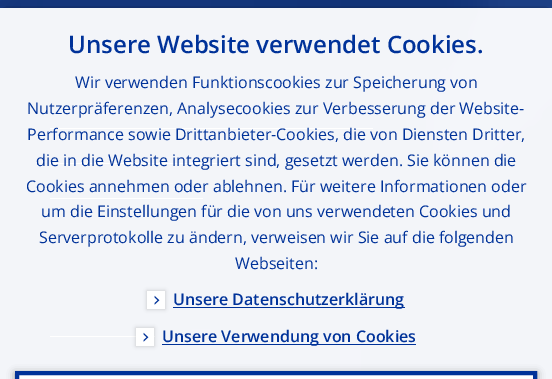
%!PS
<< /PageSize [552 379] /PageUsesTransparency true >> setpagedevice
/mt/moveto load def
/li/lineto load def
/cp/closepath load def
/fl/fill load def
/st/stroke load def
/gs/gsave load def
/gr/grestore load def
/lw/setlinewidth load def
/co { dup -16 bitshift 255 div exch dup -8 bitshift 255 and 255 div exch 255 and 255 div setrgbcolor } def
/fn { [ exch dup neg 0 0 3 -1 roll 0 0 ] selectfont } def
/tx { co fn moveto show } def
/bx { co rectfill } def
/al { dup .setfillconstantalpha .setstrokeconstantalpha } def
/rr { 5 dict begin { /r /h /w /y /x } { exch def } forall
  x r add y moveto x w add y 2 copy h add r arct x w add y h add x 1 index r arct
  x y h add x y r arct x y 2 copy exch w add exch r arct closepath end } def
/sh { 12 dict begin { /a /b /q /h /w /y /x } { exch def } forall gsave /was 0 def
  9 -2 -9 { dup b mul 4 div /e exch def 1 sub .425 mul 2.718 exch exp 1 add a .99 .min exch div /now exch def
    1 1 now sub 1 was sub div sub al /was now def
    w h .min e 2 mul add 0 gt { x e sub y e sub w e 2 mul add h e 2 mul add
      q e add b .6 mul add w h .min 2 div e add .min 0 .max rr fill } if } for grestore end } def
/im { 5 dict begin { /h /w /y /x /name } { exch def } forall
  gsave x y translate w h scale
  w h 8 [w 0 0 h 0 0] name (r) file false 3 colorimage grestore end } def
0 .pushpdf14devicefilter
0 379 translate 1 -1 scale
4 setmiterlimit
0 0 552 379 16#03349A bx
0 8 552 371 16#F2F5FA bx
(media/1.raw) 0 0 552 379 im
50 128 323 1 16#FFFFFF bx
50 163 185 1 16#FFFFFF bx
50 198 153 1 16#FFFFFF bx
50 336 105 1 16#FFFFFF bx
gs
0 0 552 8 rectclip
16#000000 co
0 10 552 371 0 15 .5 sh
gr
16#000000 co
147 291 18 18 0 2 .2 sh
147 291 18 18 16#FFFFFF bx
(media/2.raw) 154 295 6 10 im
173 307 232 1 16#003299 bx
16#000000 co
136 328 18 18 0 2 .2 sh
136 328 18 18 16#FFFFFF bx
(media/2.raw) 143 332 6 10 im
162 344 254 1 16#003299 bx
16#000000 co
15 373 522 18 0 4 .4 sh
16#FFFFFF co
17 373 mt 535 373 li 535 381 li 17 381 li cp gs fl gr
16#003299 co
4 lw
st
(Unsere Website verwendet Cookies.) 68 53 /OpenSans-SemiBold 24 16#003299 tx
(Wir verwenden Funktionscookies zur Speicherung von) 75 88 /OpenSans-Regular 16 16#003299 tx
(Nutzerpräferenzen, Analysecookies zur Verbesserung der Website-) 27 114 /OpenSans-Regular 16 16#003299 tx
(Performance sowie Drittanbieter-Cookies, die von Diensten Dritter,) 27 140 /OpenSans-Regular 16 16#003299 tx
(die in die Website integriert sind, gesetzt werden. Sie können die) 36 166 /OpenSans-Regular 16 16#003299 tx
(Cookies annehmen oder ablehnen. Für weitere Informationen oder) 26 192 /OpenSans-Regular 16 16#003299 tx
(um die Einstellungen für die von uns verwendeten Cookies und) 41 217 /OpenSans-Regular 16 16#003299 tx
(Serverprotokolle zu ändern, verweisen wir Sie auf die folgenden) 39 243 /OpenSans-Regular 16 16#003299 tx
(Webseiten:) 235 269 /OpenSans-Regular 16 16#003299 tx
(Unsere Datenschutzerklärung) 173 305 /OpenSans-SemiBold 16 16#003299 tx
(Unsere Verwendung von Cookies) 162 342 /OpenSans-SemiBold 16 16#003299 tx
.poppdf14devicefilter showpage
